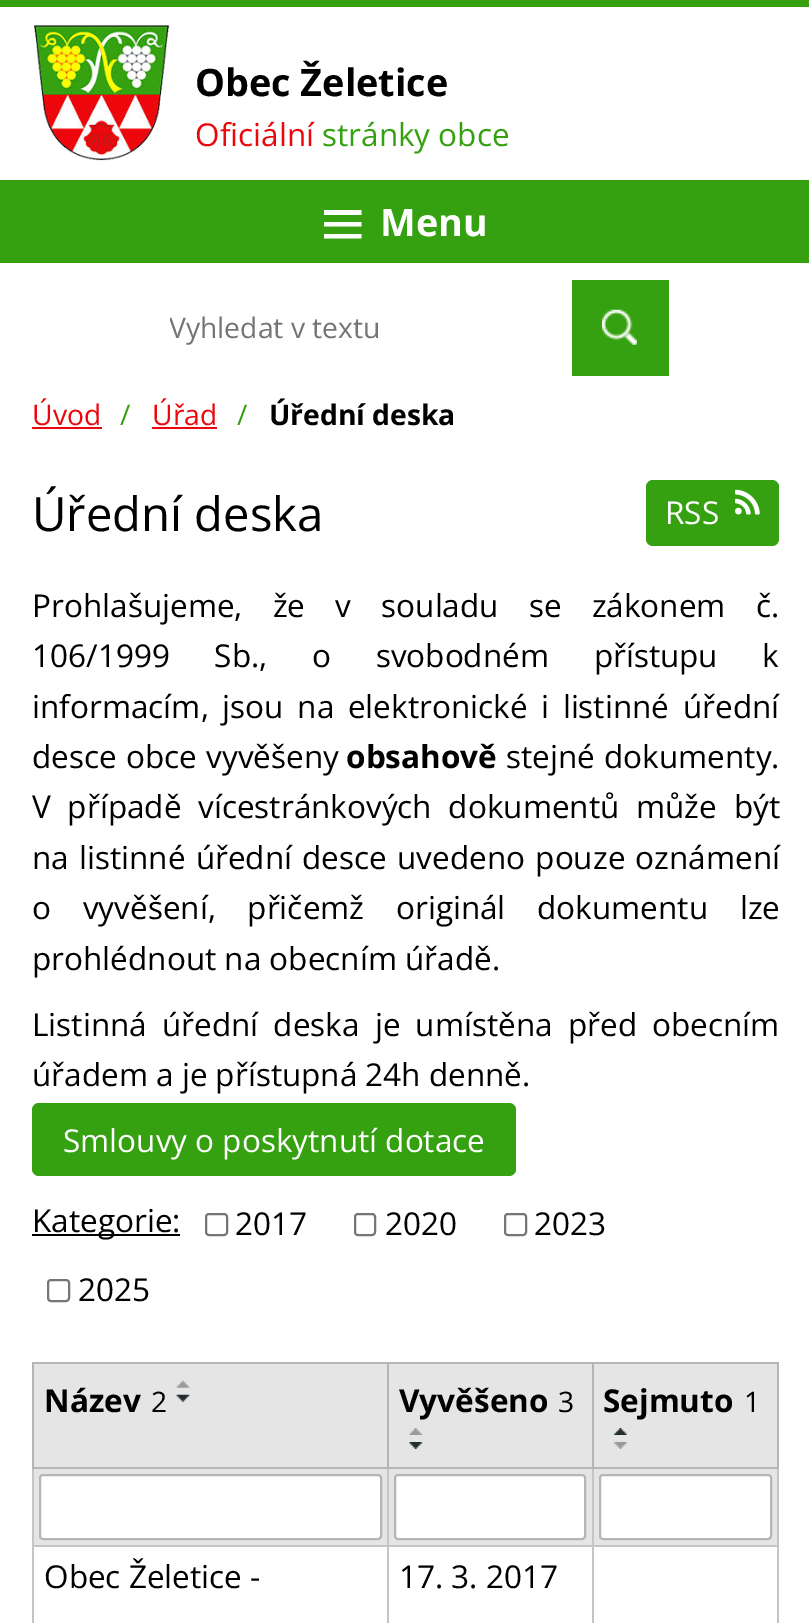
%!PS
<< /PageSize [809 1623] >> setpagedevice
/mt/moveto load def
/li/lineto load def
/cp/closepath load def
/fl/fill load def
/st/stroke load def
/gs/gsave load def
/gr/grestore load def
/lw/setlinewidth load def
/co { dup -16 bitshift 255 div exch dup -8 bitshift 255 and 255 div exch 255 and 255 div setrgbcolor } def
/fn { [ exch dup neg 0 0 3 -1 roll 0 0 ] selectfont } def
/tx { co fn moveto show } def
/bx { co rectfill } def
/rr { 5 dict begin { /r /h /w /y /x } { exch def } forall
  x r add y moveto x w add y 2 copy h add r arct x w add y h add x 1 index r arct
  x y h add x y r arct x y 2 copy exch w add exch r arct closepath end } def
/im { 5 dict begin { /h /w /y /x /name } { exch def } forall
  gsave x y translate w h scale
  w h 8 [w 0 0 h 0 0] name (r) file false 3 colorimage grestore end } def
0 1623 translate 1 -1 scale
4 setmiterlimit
0 0 809 1623 16#FFFFFF bx
0 0 809 7 16#35A111 bx
(media/1.raw) 34 25 135 136 im
572 280 97 96 16#35A111 bx
(media/2.raw) 602 309 35 36 im
0 180 809 83 16#35A111 bx
16#FFFFFF co
324 238.5 mt 324 234 li 361.5 234 li 361.5 238.5 li cp 324 210 mt 361.5 210 li 361.5 215 li 324 215 li cp 324 226.5 mt 324 222 li 361.5 222 li 361.5 226.5 li cp fl
32 427 70 2 16#ED070D bx
152 427 65 2 16#ED070D bx
16#35A111 co
646 480 133 66 7 rr fl
(media/3.raw) 735 489 25 26 im
32 1103 484 73 7 rr fl
32 1234 148 2 16#000000 bx
16#767676 co
2 lw
206 1214 21 21 3 rr st
355 1214 20 21 3 rr st
505 1214 21 21 3 rr st
48 1280 21 21 3 rr st
34 1364 353 103 16#E5E5E5 bx
592 1362 187 2 16#B5B5B5 bx
592 1545 187 2 16#C5C5C5 bx
777 1467 2 156 16#C5C5C5 bx
777 1362 2 106 16#B5B5B5 bx
34 1469 743 76 16#E5E5E5 bx
592 1545 2 78 16#C5C5C5 bx
387 1545 206 2 16#C5C5C5 bx
592 1467 2 80 16#C5C5C5 bx
592 1467 187 2 16#B5B5B5 bx
592 1362 2 106 16#B5B5B5 bx
387 1362 206 2 16#B5B5B5 bx
387 1545 2 78 16#C5C5C5 bx
32 1545 357 2 16#C5C5C5 bx
387 1467 2 80 16#C5C5C5 bx
387 1467 206 2 16#B5B5B5 bx
387 1362 2 106 16#B5B5B5 bx
32 1362 357 2 16#B5B5B5 bx
32 1467 2 156 16#C5C5C5 bx
32 1467 357 2 16#B5B5B5 bx
32 1362 2 106 16#B5B5B5 bx
(media/4.raw) 176 1380 14 8 im
(media/5.raw) 176 1394 14 8 im
389 1364 203 103 16#E5E5E5 bx
(media/6.raw) 409 1428 14 7 im
(media/7.raw) 409 1442 14 7 im
594 1364 183 103 16#E5E5E5 bx
(media/8.raw) 613 1428 14 7 im
(media/9.raw) 613 1442 14 7 im
16#FFFFFF co
40 1475 341 64 3 rr gs fl gr
16#B5B5B5 co
st
16#FFFFFF co
395 1475 190 64 3 rr gs fl gr
16#B5B5B5 co
st
16#FFFFFF co
600 1475 171 64 3 rr gs fl gr
16#B5B5B5 co
st
(Obec Želetice) 195 96 /OpenSans-Bold 37.75 16#000000 tx
(Oficiální) 195 146 /OpenSans-Regular 31.5 16#ED070D tx
(stránky obce) 322 146 /OpenSans-Regular 31.5 16#35A111 tx
gs
170 308 254 39 rectclip
(Vyhledat v textu) 169 338 /OpenSans-Regular 28.25 16#757575 tx
gr
(Menu) 380 236 /OpenSans-Bold 37.75 16#FFFFFF tx
(Úvod) 32 425 /OpenSans-Regular 28.25 16#ED070D tx
(/) 120 425 /OpenSans-Regular 28.25 16#35A111 tx
(Úřad) 152 425 /OpenSans-Regular 28.25 16#ED070D tx
(/) 237 425 /OpenSans-Regular 28.25 16#35A111 tx
(Úřední deska) 269 425 /OpenSans-Bold 28.25 16#000000 tx
(Úřední deska) 32 531 /OpenSans-Regular 47.25 16#000000 tx
(RSS) 665 524 /OpenSans-Regular 31.5 16#FFFFFF tx
16#000000 co
32 617 mt 22 0 32 (Prohlašujeme, že v souladu se zákonem č.) widthshow
32 667 mt 36.5 0 32 (106/1999 Sb., o svobodném přístupu k) widthshow
32 718 mt 5.5 0 32 (informacím, jsou na elektronické i listinné úřední) widthshow
32 768 mt 1 0 32 (desce obce vyvěšeny) widthshow
(obsahově) 346 768 /OpenSans-Bold 31.5 16#000000 tx
/OpenSans-Regular 31.5 fn
506 768 mt 1 0 32 (stejné dokumenty.) widthshow
32 818 mt 8.5 0 32 (V případě vícestránkových dokumentů může být) widthshow
32 869 mt 2 0 32 (na listinné úřední desce uvedeno pouze oznámení) widthshow
32 919 mt 23.5 0 32 (o vyvěšení, přičemž originál dokumentu lze) widthshow
(prohlédnout na obecním úřadě.) 32 970 /OpenSans-Regular 31.5 16#000000 tx
32 1036 mt 7 0 32 (Listinná úřední deska je umístěna před obecním) widthshow
(úřadem a je přístupná 24h denně.) 32 1086 /OpenSans-Regular 31.5 16#000000 tx
(Smlouvy o poskytnutí dotace) 63 1152 /OpenSans-Regular 31.5 16#FFFFFF tx
(Kategorie:) 32 1232 /OpenSans-Regular 31.5 16#000000 tx
(2017) 235 1235 /OpenSans-Regular 31.5 16#000000 tx
(2020) 385 1235 /OpenSans-Regular 31.5 16#000000 tx
(2023) 534 1235 /OpenSans-Regular 31.5 16#000000 tx
(2025) 78 1301 /OpenSans-Regular 31.5 16#000000 tx
(Název) 44 1412 /OpenSans-Bold 31.5 16#000000 tx
(2) 151 1412 /OpenSans-Regular 28.25 16#000000 tx
(Vyvěšeno) 399 1412 /OpenSans-Bold 31.5 16#000000 tx
(3) 558 1412 /OpenSans-Regular 28.25 16#000000 tx
(Sejmuto) 603 1412 /OpenSans-Bold 31.5 16#000000 tx
(1) 744 1412 /OpenSans-Regular 28.25 16#000000 tx
(Obec Želetice -) 44 1588 /OpenSans-Regular 31.5 16#000000 tx
(17. 3. 2017) 399 1588 /OpenSans-Regular 31.5 16#000000 tx
showpage
